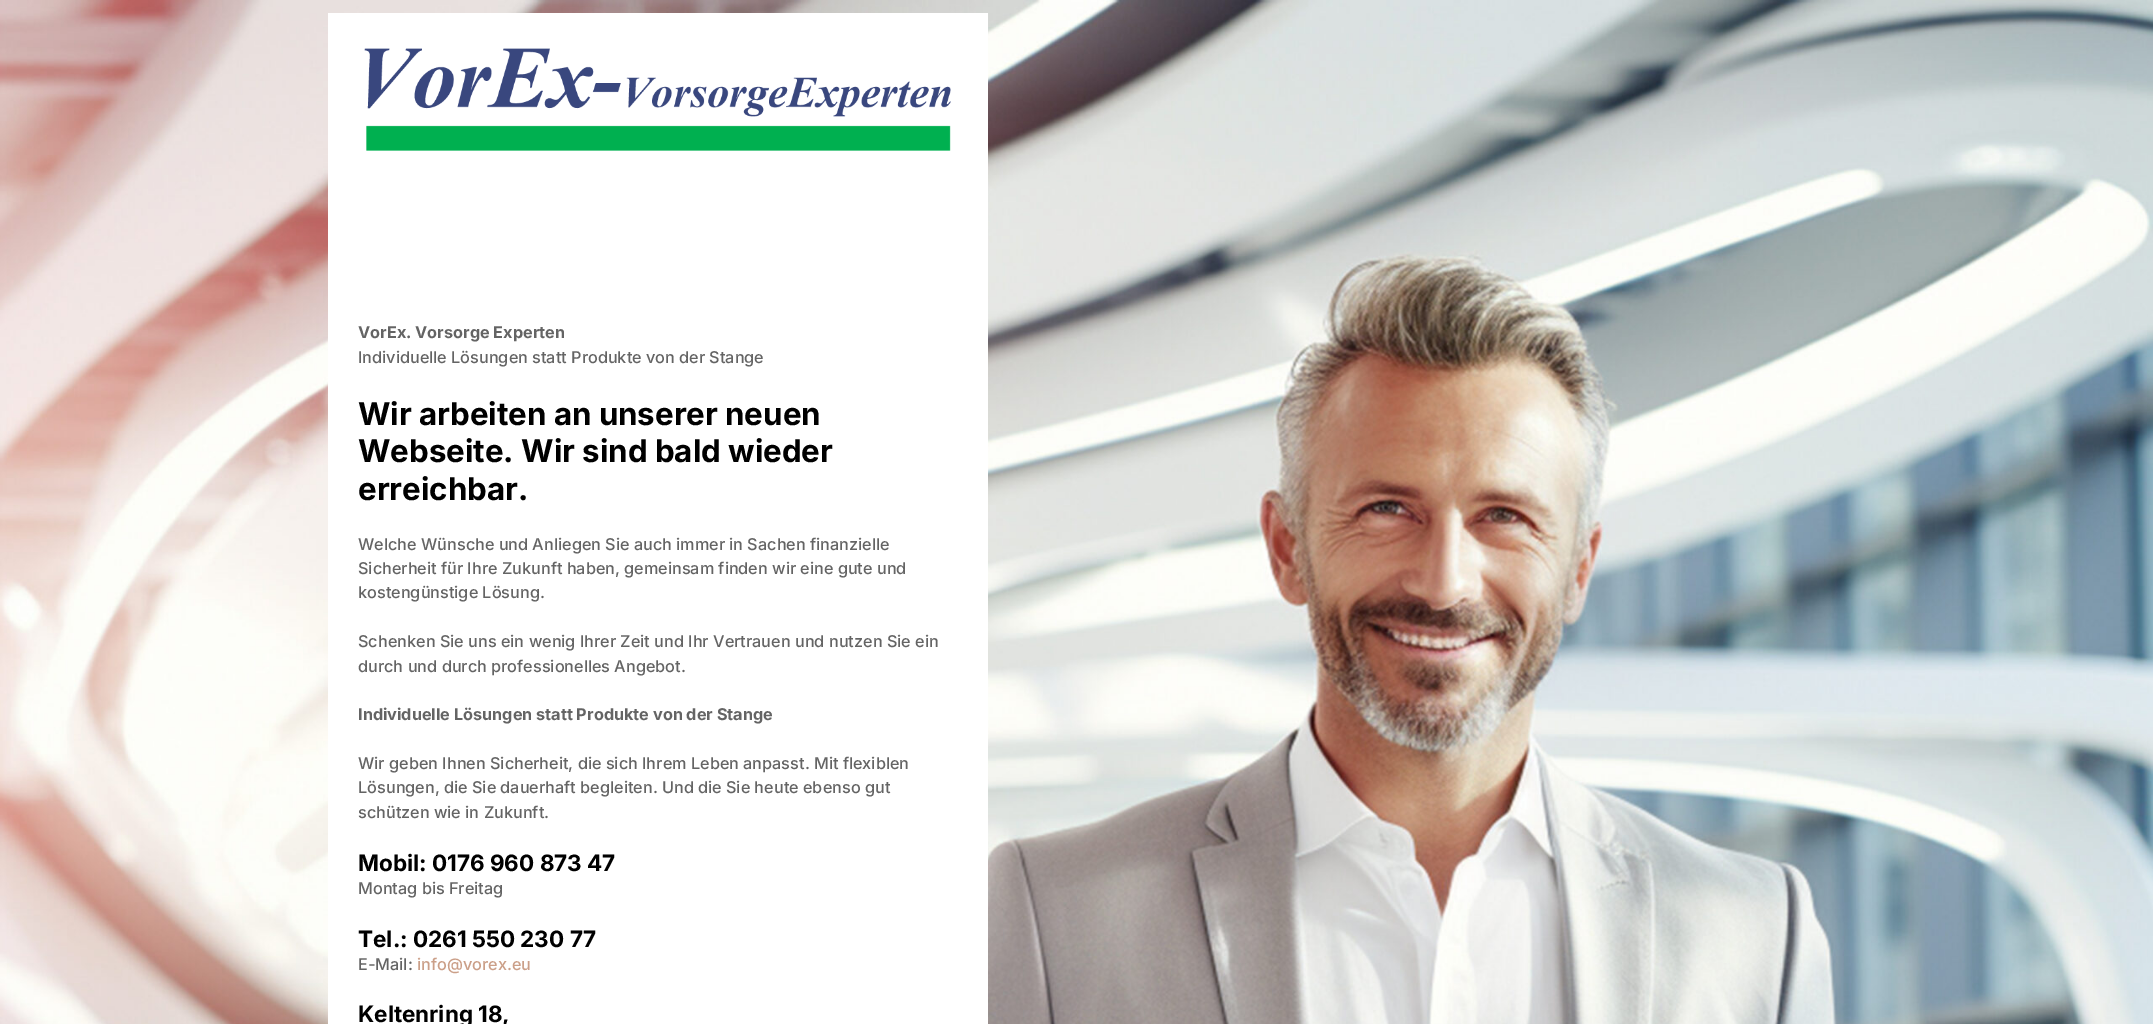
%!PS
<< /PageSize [2153 1024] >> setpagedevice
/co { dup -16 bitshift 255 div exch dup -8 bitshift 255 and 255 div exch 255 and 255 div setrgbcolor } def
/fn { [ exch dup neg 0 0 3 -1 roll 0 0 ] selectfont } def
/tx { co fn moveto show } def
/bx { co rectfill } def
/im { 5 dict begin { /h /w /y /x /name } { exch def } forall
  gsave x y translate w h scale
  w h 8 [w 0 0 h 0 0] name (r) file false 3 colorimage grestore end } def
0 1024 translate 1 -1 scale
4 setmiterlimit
0 0 2153 1024 16#FFFFFF bx
(media/1.raw) 0 0 2153 1024 im
328 13 660 1011 16#FFFFFF bx
(media/2.raw) 364 48 587 103 im
(VorEx. Vorsorge Experten) 358 338 /Inter-Bold 16.25 16#646464 tx
(Individuelle Lösungen statt Produkte von der Stange) 358 363 /Inter-Medium 16.25 16#646464 tx
(Wir arbeiten an unserer neuen) 358 425 /Inter-Bold 31.25 16#000000 tx
(Webseite. Wir sind bald wieder) 358 462 /Inter-Bold 31.25 16#000000 tx
(erreichbar.) 358 500 /Inter-Bold 31.25 16#000000 tx
(Welche Wünsche und Anliegen Sie auch immer in Sachen finanzielle) 358 550 /Inter-Medium 16.25 16#646464 tx
(Sicherheit für Ihre Zukunft haben, gemeinsam finden wir eine gute und) 358 574 /Inter-Medium 16.25 16#646464 tx
(kostengünstige Lösung.) 358 598 /Inter-Medium 16.25 16#646464 tx
(Schenken Sie uns ein wenig Ihrer Zeit und Ihr Vertrauen und nutzen Sie ein) 358 647 /Inter-Medium 16.25 16#646464 tx
(durch und durch professionelles Angebot.) 358 672 /Inter-Medium 16.25 16#646464 tx
(Individuelle Lösungen statt Produkte von der Stange) 358 720 /Inter-Bold 16.25 16#646464 tx
(Wir geben Ihnen Sicherheit, die sich Ihrem Leben anpasst. Mit flexiblen) 358 769 /Inter-Medium 16.25 16#646464 tx
(Lösungen, die Sie dauerhaft begleiten. Und die Sie heute ebenso gut) 358 793 /Inter-Medium 16.25 16#646464 tx
(schützen wie in Zukunft.) 358 818 /Inter-Medium 16.25 16#646464 tx
(Mobil: 0176 960 873 47) 358 871 /Inter-Bold 22.5 16#000000 tx
(Montag bis Freitag) 358 894 /Inter-Medium 16.25 16#646464 tx
(Tel.: 0261 550 230 77) 358 947 /Inter-Bold 22.5 16#000000 tx
(E-Mail:) 358 970 /Inter-Medium 16.25 16#646464 tx
(info@vorex.eu) 417 970 /Inter-Medium 16.25 16#CB9F88 tx
(Keltenring 18,) 358 1022 /Inter-Bold 22.5 16#000000 tx
showpage
